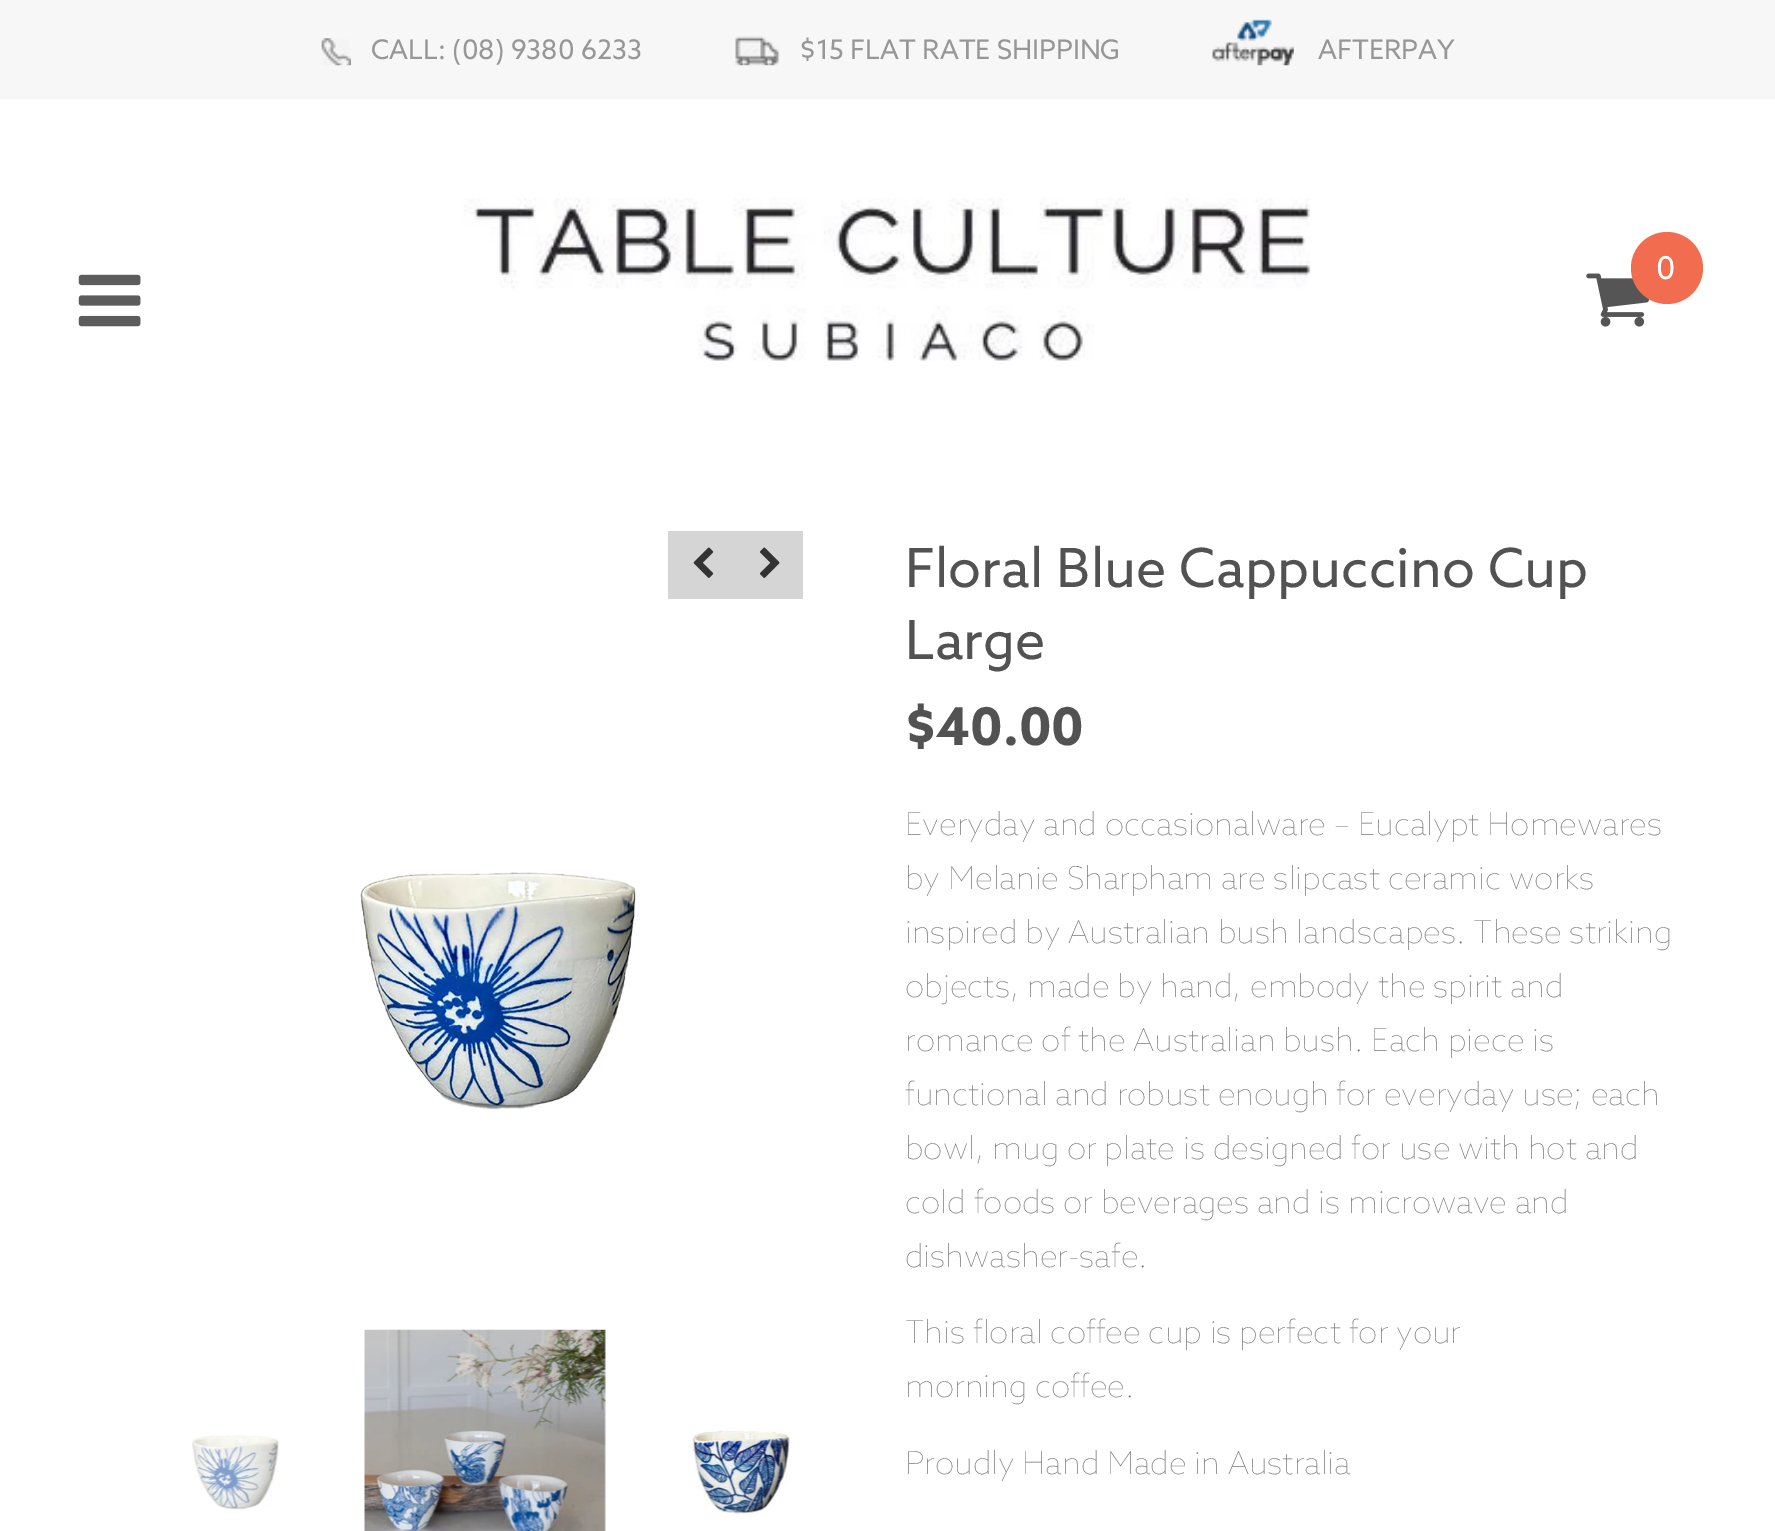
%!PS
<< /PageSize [1775 1531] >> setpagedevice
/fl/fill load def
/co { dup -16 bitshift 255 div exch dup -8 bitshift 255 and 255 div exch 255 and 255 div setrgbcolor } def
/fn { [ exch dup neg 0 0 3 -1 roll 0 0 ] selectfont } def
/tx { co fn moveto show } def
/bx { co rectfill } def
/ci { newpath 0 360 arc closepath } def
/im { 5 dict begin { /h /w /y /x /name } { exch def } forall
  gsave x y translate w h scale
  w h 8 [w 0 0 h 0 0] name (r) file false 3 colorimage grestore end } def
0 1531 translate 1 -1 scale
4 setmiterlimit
0 0 1775 1531 16#FFFFFF bx
0 0 1775 99 16#F7F7F7 bx
(media/1.raw) 321 38 30 28 im
(media/2.raw) 734 36 46 30 im
(media/3.raw) 1212 19 82 47 im
(media/4.raw) 463 198 848 163 im
(media/5.raw) 1586 273 63 54 im
16#F26C4F co
1667 268 36 ci fl
(media/6.raw) 78 274 63 53 im
668 531 135 68 16#D5D5D5 bx
(media/7.raw) 693 547 21 31 im
(media/8.raw) 760 547 20 31 im
(media/9.raw) 360 872 277 238 im
(media/10.raw) 192 1435 88 75 im
(media/11.raw) 364 1329 242 202 im
(media/12.raw) 691 1430 99 85 im
(CALL: \(08\) 9380 6233) 371 59 /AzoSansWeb-Regular 27 16#979797 tx
($15 FLAT RATE SHIPPING) 800 59 /AzoSansWeb-Regular 27 16#979797 tx
(AFTERPAY) 1318 59 /AzoSansWeb-Regular 27 16#979797 tx
(0) 1656 279 /AzoSansWeb-Regular 31.5 16#FFFFFF tx
(Floral Blue Cappuccino Cup) 905 587 /AzoSansWeb-Regular 54 16#525252 tx
(Large) 905 659 /AzoSansWeb-Regular 54 16#525252 tx
($40.00) 905 745 /AzoSansWeb-Bold 52 16#525252 tx
(Everyday and occasionalware – Eucalypt Homewares) 905 835 /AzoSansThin-Thin 31.5 16#777777 tx
(by Melanie Sharpham are slipcast ceramic works) 905 889 /AzoSansThin-Thin 31.5 16#777777 tx
(inspired by Australian bush landscapes. These striking) 905 943 /AzoSansThin-Thin 31.5 16#777777 tx
(objects, made by hand, embody the spirit and) 905 997 /AzoSansThin-Thin 31.5 16#777777 tx
(romance of the Australian bush. Each piece is) 905 1051 /AzoSansThin-Thin 31.5 16#777777 tx
(functional and robust enough for everyday use; each) 905 1105 /AzoSansThin-Thin 31.5 16#777777 tx
(bowl, mug or plate is designed for use with hot and) 905 1159 /AzoSansThin-Thin 31.5 16#777777 tx
(cold foods or beverages and is microwave and) 905 1213 /AzoSansThin-Thin 31.5 16#777777 tx
(dishwasher-safe.) 905 1267 /AzoSansThin-Thin 31.5 16#777777 tx
(This floral coffee cup is perfect for your) 905 1343 /AzoSansThin-Thin 31.5 16#777777 tx
(morning coffee.) 905 1397 /AzoSansThin-Thin 31.5 16#777777 tx
(Proudly Hand Made in Australia) 905 1474 /AzoSansThin-Thin 31.5 16#777777 tx
showpage
